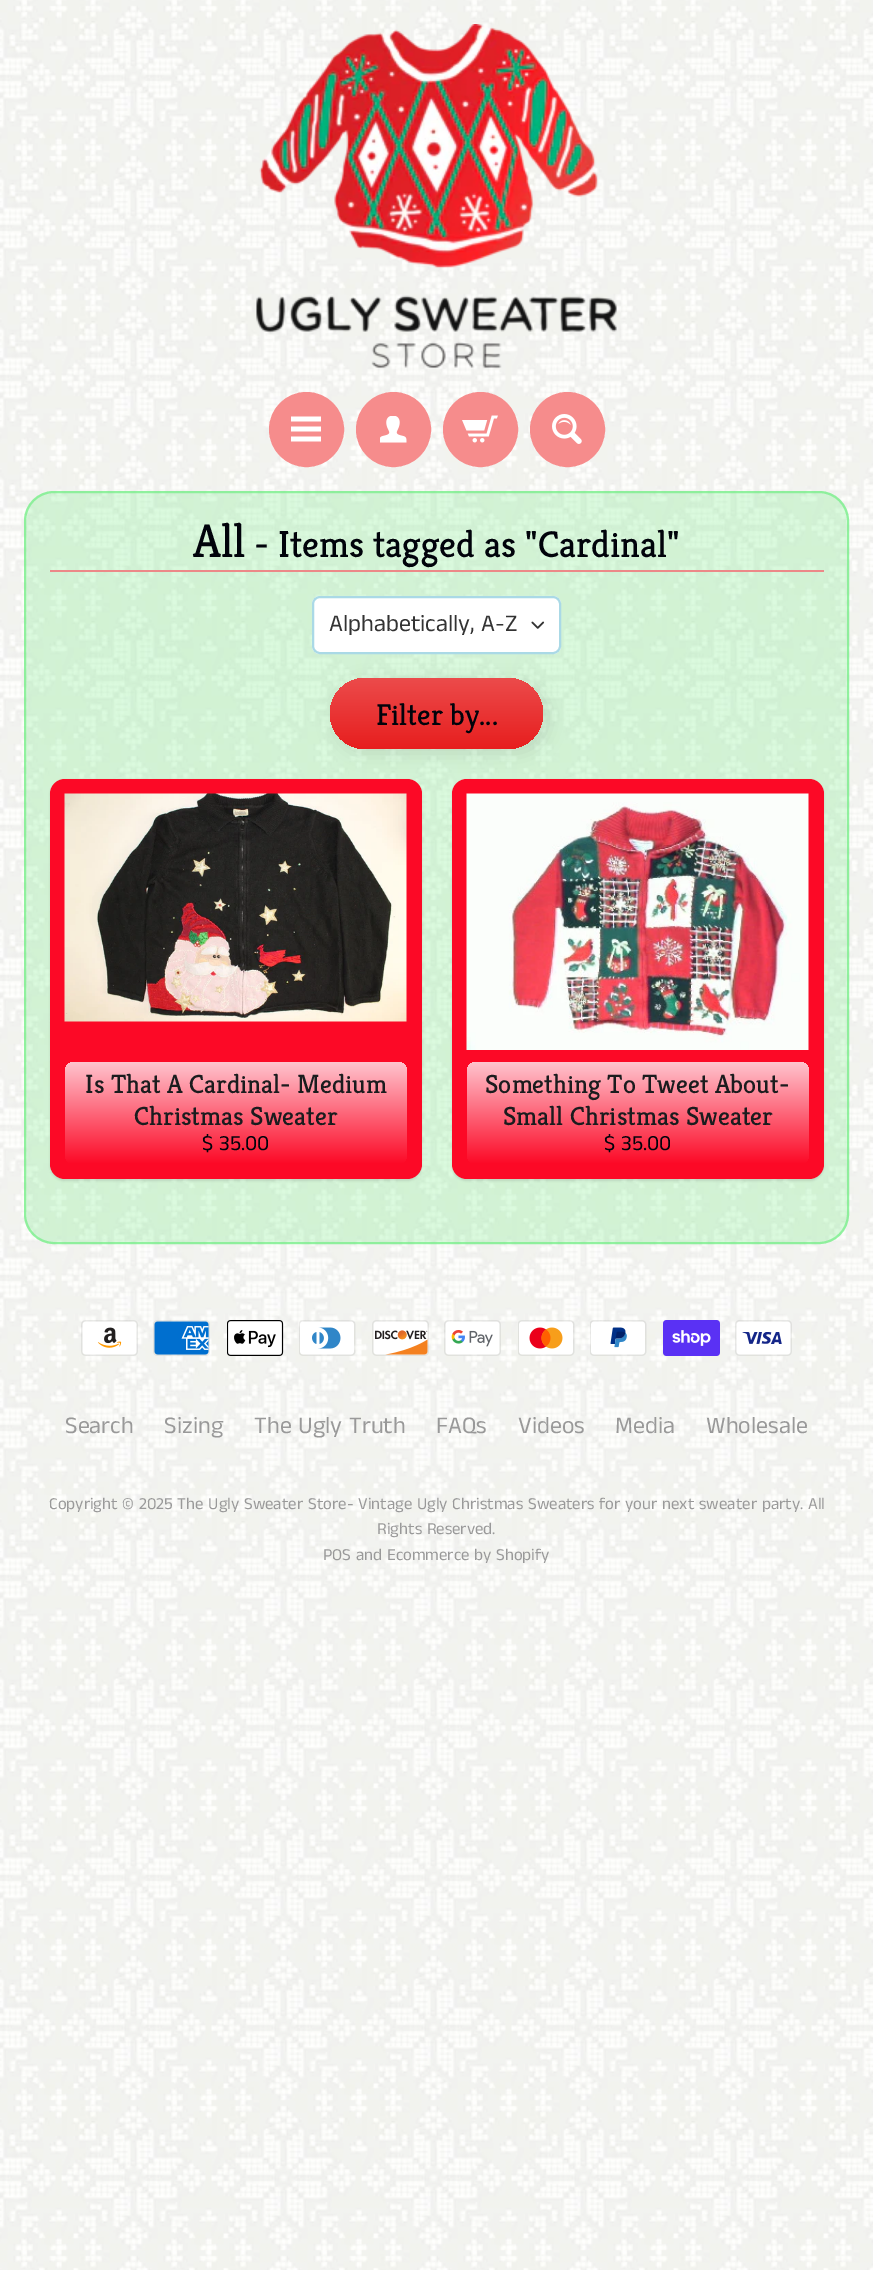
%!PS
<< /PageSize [873 2270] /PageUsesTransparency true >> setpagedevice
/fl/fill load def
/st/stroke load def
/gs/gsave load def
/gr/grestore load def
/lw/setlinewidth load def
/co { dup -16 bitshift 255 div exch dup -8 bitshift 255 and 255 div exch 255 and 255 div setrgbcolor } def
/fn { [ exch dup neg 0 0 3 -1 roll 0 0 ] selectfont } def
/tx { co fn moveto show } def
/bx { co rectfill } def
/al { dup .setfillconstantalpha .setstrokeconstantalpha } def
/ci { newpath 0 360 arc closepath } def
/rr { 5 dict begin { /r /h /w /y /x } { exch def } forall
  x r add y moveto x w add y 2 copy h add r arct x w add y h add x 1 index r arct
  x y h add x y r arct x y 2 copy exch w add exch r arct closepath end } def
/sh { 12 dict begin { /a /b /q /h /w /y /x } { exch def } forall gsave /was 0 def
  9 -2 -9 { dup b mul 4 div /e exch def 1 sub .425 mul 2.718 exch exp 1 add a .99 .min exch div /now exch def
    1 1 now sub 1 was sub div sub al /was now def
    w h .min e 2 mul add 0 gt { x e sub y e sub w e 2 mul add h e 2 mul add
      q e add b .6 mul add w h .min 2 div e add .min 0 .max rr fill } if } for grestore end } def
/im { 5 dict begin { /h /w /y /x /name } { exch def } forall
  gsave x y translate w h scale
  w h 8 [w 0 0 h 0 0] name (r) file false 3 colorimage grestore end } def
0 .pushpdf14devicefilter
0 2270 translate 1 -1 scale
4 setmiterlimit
0 0 873 2270 16#FFFFFF bx
(media/1.raw) 0 0 873 2270 im
(media/2.raw) 256 24 361 344 im
16#F68C8C co
306.5 429.5 35 ci gs fl gr
5 lw
st
(media/3.raw) 291 416 30 26 im
393.5 429.5 35 ci gs fl gr
st
(media/4.raw) 380 416 27 27 im
480.5 429.5 35 ci gs fl gr
st
(media/5.raw) 462 415 36 28 im
567.5 429.5 35 ci gs fl gr
st
(media/6.raw) 552 414 30 30 im
0.25 al
16#71EE84 co
24 491 825 753 30 rr fl
0.7 al
2 lw
25 492 823 751 29 rr st
1 al
50 570 774 2 16#EC8888 bx
16#FFFFFF co
312 596 249 58 8 rr fl
(media/7.raw) 531 621 14 8 im
16#AAD9E6 co
313 597 247 56 7 rr st
16#000000 co
335 683 213 70 35 9 .1 sh
gs 330 678 213 71 35.5 rr clip newpath
<< /ShadingType 2 /ColorSpace /DeviceRGB /Coords [437 678 437 749] /Extend [true true] /Function << /FunctionType 2 /Domain [0 1] /C0 [.925 .294 .294] /C1 [.906 .118 .118] /N 1 >> >> shfill gr
50 780 372 401 15 1 .1 sh
16#FC0926 co
50 779 372 400 15 rr fl
(media/8.raw) 64 793 343 229 im
gs 65 1062 342 102 9 rr clip newpath
<< /ShadingType 2 /ColorSpace /DeviceRGB /Coords [236 1062 236 1164] /Extend [true true] /Function << /FunctionType 2 /Domain [0 1] /C0 [1 .769 .808] /C1 [.988 .035 .149] /N 1 >> >> shfill gr
16#000000 co
452 780 372 401 15 1 .1 sh
16#FC0926 co
452 779 372 400 15 rr fl
(media/9.raw) 466 793 343 257 im
gs 467 1062 342 102 9 rr clip newpath
<< /ShadingType 2 /ColorSpace /DeviceRGB /Coords [638 1062 638 1164] /Extend [true true] /Function << /FunctionType 2 /Domain [0 1] /C0 [1 .769 .808] /C1 [.988 .035 .149] /N 1 >> >> shfill gr
(media/10.raw) 81 1320 57 36 im
(media/11.raw) 153 1320 57 36 im
(media/12.raw) 227 1320 57 36 im
(media/13.raw) 299 1320 57 36 im
(media/14.raw) 372 1320 57 36 im
(media/15.raw) 444 1320 57 36 im
(media/16.raw) 518 1320 57 36 im
(media/17.raw) 590 1320 57 36 im
(media/18.raw) 663 1320 57 36 im
(media/19.raw) 735 1320 57 36 im
(All) 193 557 /Kreon-Regular 47 16#01030B tx
(- Items tagged as "Cardinal") 254 557 /Kreon-Regular 37.5 16#01030B tx
(Alphabetically, A-Z) 329 631 /AnekTamil-Regular 24 16#333333 tx
(Filter by...) 376 725 /Kreon-Regular 30 16#01030B tx
(Is That A Cardinal- Medium) 85 1093 /Kreon-Regular 26.4 16#1B1C1E tx
(Christmas Sweater) 134 1125 /Kreon-Regular 26.4 16#1B1C1E tx
($ 35.00) 202 1150 /AnekTamil-Regular 21.5 16#01030B tx
(Something To Tweet About-) 485 1093 /Kreon-Regular 26.4 16#1B1C1E tx
(Small Christmas Sweater) 503 1125 /Kreon-Regular 26.4 16#1B1C1E tx
($ 35.00) 604 1150 /AnekTamil-Regular 21.5 16#01030B tx
(Search) 65 1433 /AnekTamil-Regular 24 16#999999 tx
(Sizing) 164 1433 /AnekTamil-Regular 24 16#999999 tx
(The Ugly Truth) 254 1433 /AnekTamil-Regular 24 16#999999 tx
(FAQs) 436 1433 /AnekTamil-Regular 24 16#999999 tx
(Videos) 518 1433 /AnekTamil-Regular 24 16#999999 tx
(Media) 615 1433 /AnekTamil-Regular 24 16#999999 tx
(Wholesale) 706 1433 /AnekTamil-Regular 24 16#999999 tx
(Copyright © 2025 The Ugly Sweater Store- Vintage Ugly Christmas Sweaters for your next sweater party. All) 49 1509 /AnekTamil-Regular 16.8 16#999999 tx
(Rights Reserved.) 377 1534 /AnekTamil-Regular 16.8 16#999999 tx
(POS and Ecommerce by Shopify) 323 1560 /AnekTamil-Regular 16.8 16#999999 tx
.poppdf14devicefilter showpage
